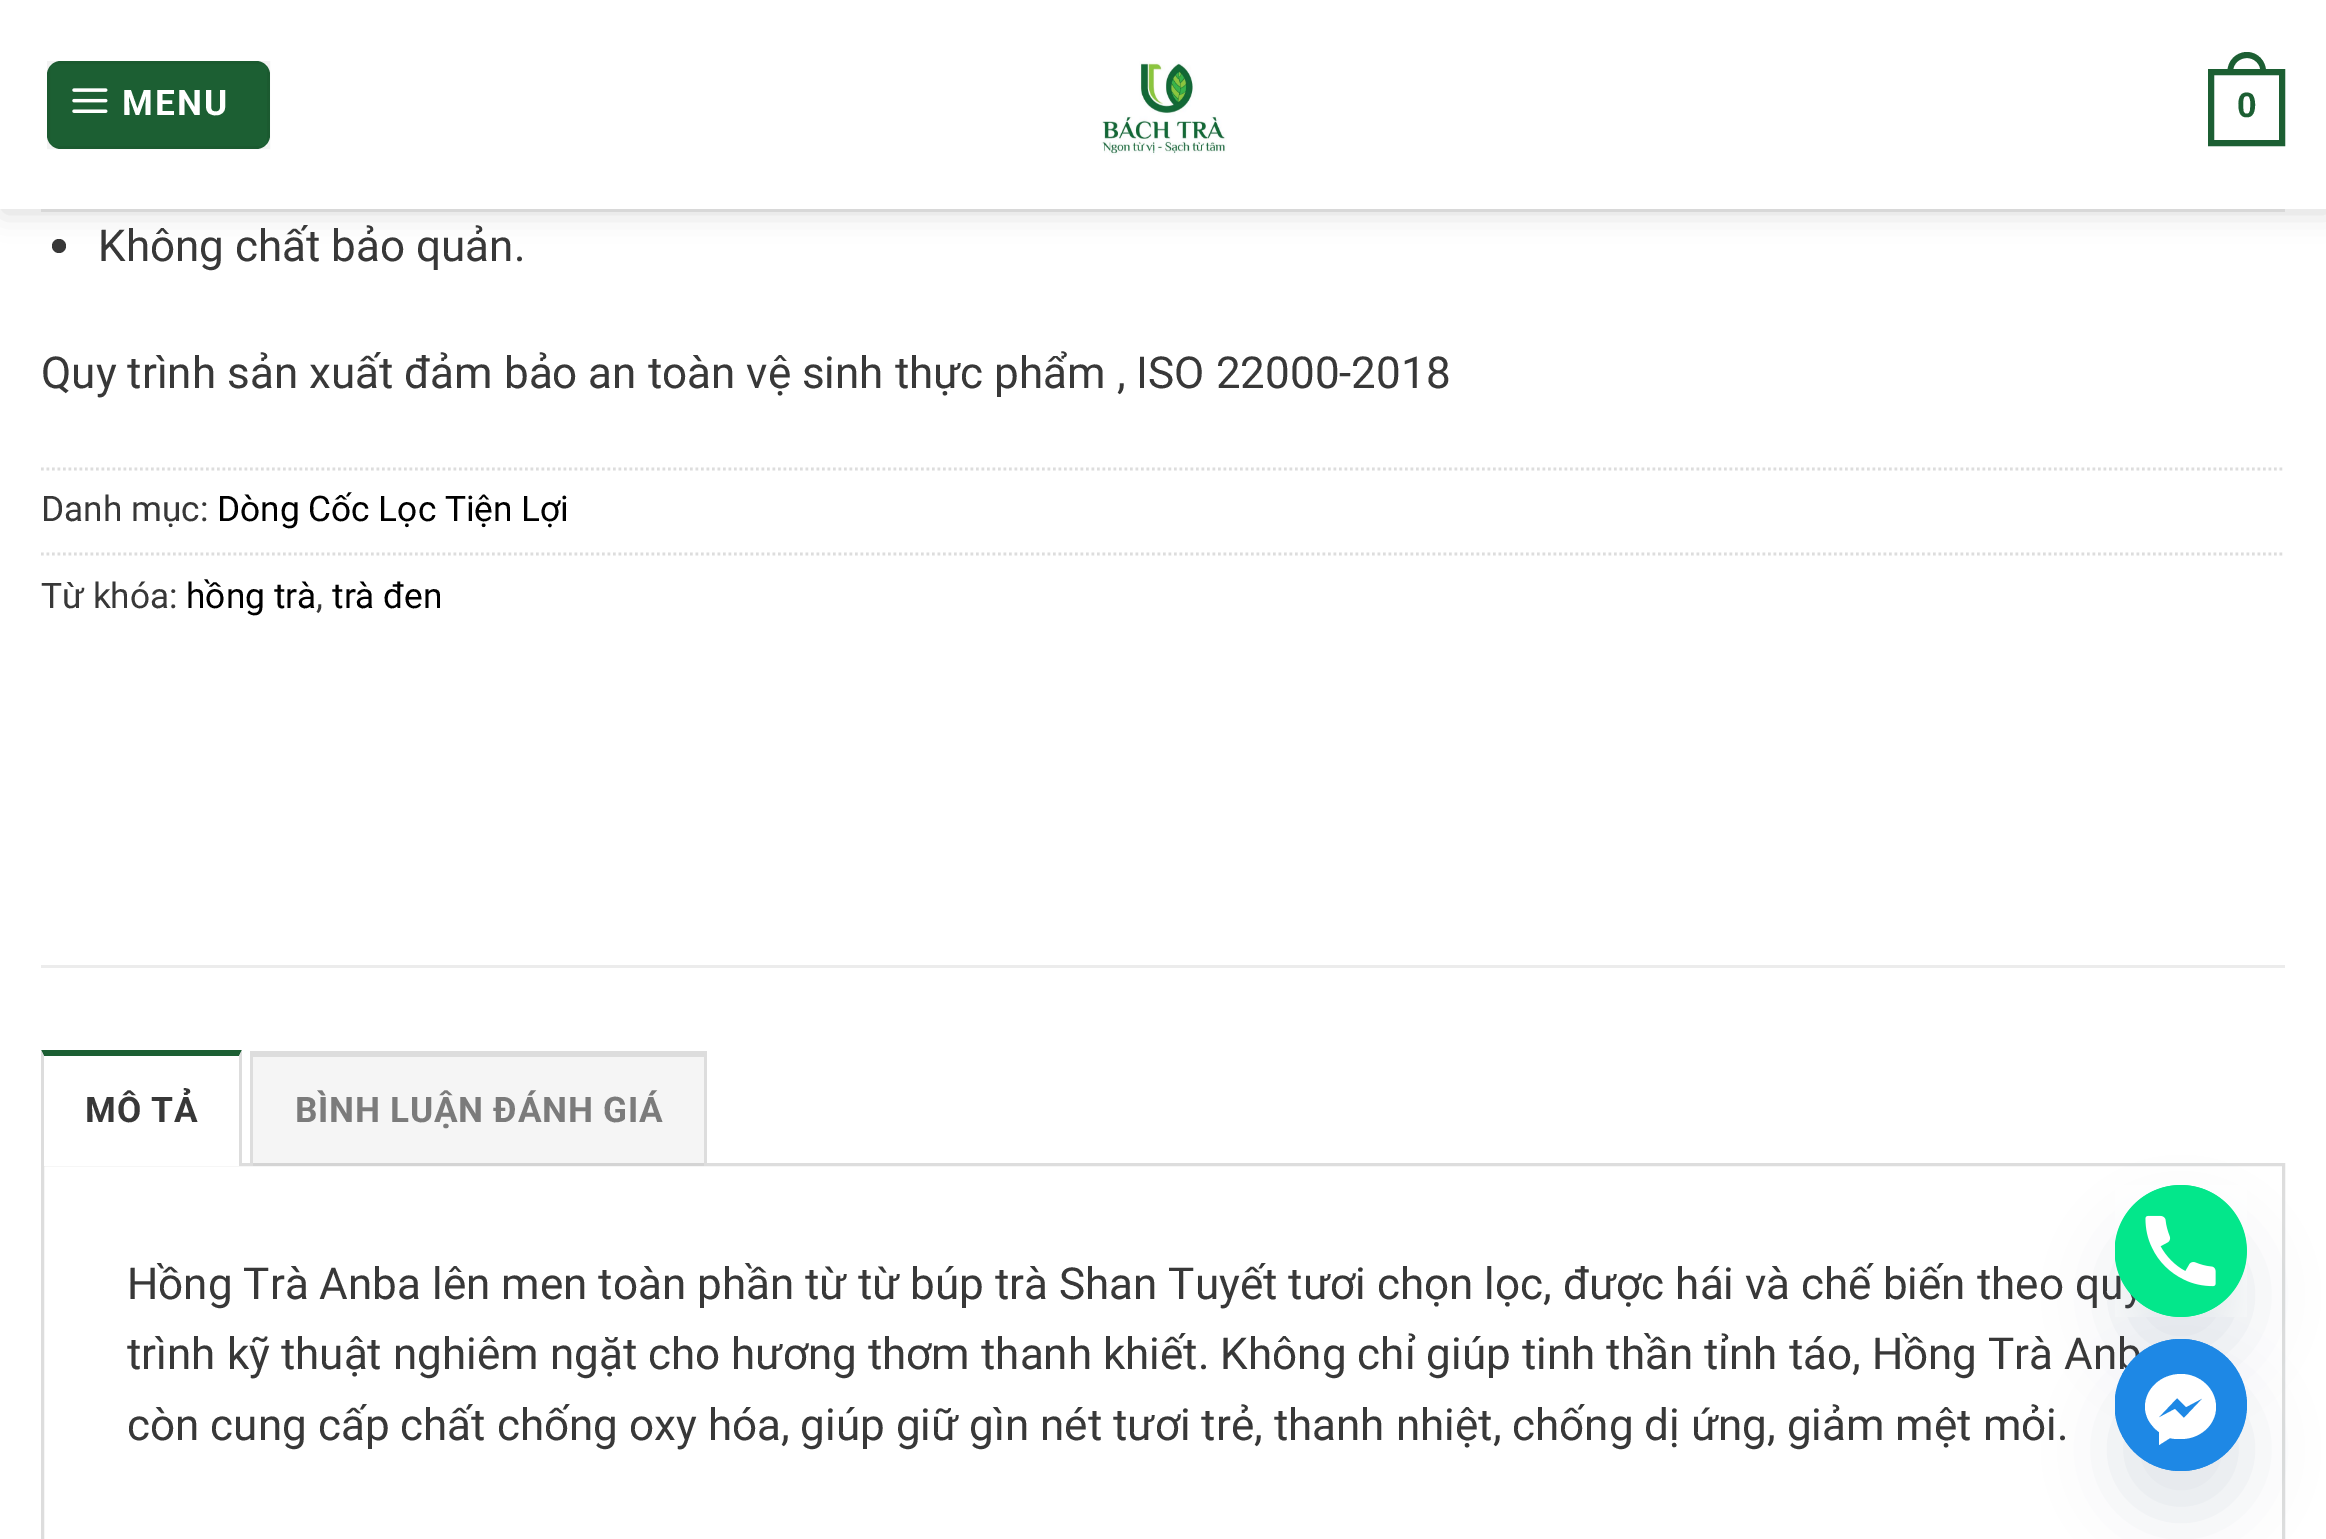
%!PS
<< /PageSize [2326 1539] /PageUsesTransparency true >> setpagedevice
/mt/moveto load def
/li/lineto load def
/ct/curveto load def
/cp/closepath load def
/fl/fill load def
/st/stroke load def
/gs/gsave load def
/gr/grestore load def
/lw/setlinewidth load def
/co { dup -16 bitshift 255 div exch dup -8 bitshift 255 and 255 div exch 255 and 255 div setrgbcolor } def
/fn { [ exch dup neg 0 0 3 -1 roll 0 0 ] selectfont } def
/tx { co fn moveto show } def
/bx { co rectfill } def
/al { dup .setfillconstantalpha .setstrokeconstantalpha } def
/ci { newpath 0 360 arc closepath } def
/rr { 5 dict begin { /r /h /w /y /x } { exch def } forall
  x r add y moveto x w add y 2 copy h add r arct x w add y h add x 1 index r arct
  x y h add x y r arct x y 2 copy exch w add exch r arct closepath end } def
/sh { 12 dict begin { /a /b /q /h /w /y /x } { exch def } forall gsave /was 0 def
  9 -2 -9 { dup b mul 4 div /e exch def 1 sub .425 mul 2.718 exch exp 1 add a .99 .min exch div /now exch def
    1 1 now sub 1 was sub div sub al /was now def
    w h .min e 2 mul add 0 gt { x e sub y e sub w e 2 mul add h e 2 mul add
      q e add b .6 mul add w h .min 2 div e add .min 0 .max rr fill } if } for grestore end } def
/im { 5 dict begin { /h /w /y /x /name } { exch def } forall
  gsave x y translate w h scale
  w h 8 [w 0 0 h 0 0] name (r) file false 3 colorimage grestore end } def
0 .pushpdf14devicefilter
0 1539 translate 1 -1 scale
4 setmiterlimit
0 0 2326 1539 16#FFFFFF bx
16#383838 co
59 246 7 ci fl
16#000000 co
3 3 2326 209 0 14 .15 sh
0 0 2326 209 16#FFFFFF bx
16#1C5F33 co
47 61 223 88 14 rr fl
0.05 al
16#000000 co
3 lw
48.5 62.5 220 85 rectstroke
1 al
(media/1.raw) 72 88 36 25 im
(media/2.raw) 1100 61 127 94 im
16#1C5F33 co
6 lw
2211 72 71 71 rectstroke
2247 52 mt 2257.5 52 2266 61 2266 71.5 ct 2266 74 li 2227.5 74 li 2227.5 71.5 li 2227.5 61 2236 52 2247 52 ct cp 2247 58 mt 2254.5 58 2260.5 64 2260.5 71.5 ct 2260.5 74 li 2233 74 li 2233 71.5 li 2233 64 2239 58 2247 58 ct cp eofill
41 209 2244 3 16#D8D8D8 bx
16#DDDDDD co
2.8 lw
[2.75 2.75] 0 setdash
41 469 mt 2285 469 li st
41 554 mt 2285 554 li st
41 965 2244 3 16#ECECEC bx
16#DDDDDD co
3 lw
[] 0 setdash
42.5 1164.5 2241 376 rectstroke
41 1163 201 3 16#FFFFFF bx
16#1C5F33 co
41 1050 mt 242 1050 li 239 1056 li 44 1056 li cp fl
16#DDDDDD co
242 1050 mt 242 1166 li 239 1166 li 239 1056 li cp fl
41 1166 mt 41 1050 li 44 1056 li 44 1166 li cp fl
0.04 al
253 1057 451 109 16#000000 bx
1 al
250 1051 457 6 16#DDDDDD bx
704 1051 3 115 16#DDDDDD bx
250 1051 3 115 16#DDDDDD bx
16#49687E co
2115 1229 132 132 66 33 .16 sh
/Roboto-Bold 35.25 fn
16#FFFFFF co
122 115 mt 2 0 (MENU) ashow
(0) 2237 117 /LiberationSans-Bold 35.25 16#1C5F33 tx
(Không chất bảo quản.) 98 261 /Roboto-Regular 44 16#383838 tx
(Quy trình sản xuất đảm bảo an toàn vệ sinh thực phẩm , ISO 22000-2018) 41 388 /Roboto-Regular 44 16#383838 tx
(Danh mục:) 41 521 /Roboto-Regular 35.25 16#383838 tx
(Dòng Cốc Lọc Tiện Lợi) 217 521 /Roboto-Regular 35.25 16#000000 tx
(Từ khóa:) 41 608 /Roboto-Regular 35.25 16#383838 tx
(hồng trà) 186 608 /Roboto-Regular 35.25 16#000000 tx
(,) 316 608 /Roboto-Regular 35.25 16#383838 tx
(trà đen) 332 608 /Roboto-Regular 35.25 16#000000 tx
/Roboto-Bold 35.25 fn
16#383838 co
85 1122 mt .75 0 (MÔ TẢ) ashow
16#7B7B7B co
295 1122 mt .75 0 (BÌNH LUẬN ĐÁNH GIÁ) ashow
(Hồng Trà Anba lên men toàn phần từ từ búp trà Shan Tuyết tươi chọn lọc, được hái và chế biến theo qu) 127 1299 /Roboto-Regular 44 16#383838 tx
(trình kỹ thuật nghiêm ngặt cho hương thơm thanh khiết. Không chỉ giúp tinh thần tỉnh táo, Hồng Trà Anb) 127 1369 /Roboto-Regular 44 16#383838 tx
(còn cung cấp chất chống oxy hóa, giúp giữ gìn nét tươi trẻ, thanh nhiệt, chống dị ứng, giảm mệt mỏi.) 127 1440 /Roboto-Regular 44 16#383838 tx
16#03E78B co
2181 1251 66 ci fl
(media/3.raw) 2115 1185 132 132 im
16#49687E co
2115 1383 132 132 66 33 .16 sh
16#1E88E5 co
2181 1405 66 ci fl
gs
2115 1339 132 132 rectclip
2180.5 1405 66 ci fl
gr
16#FFFFFF co
2145 1407 mt 2145 1389 2161 1374 2181 1374 ct 2200 1374 2216 1389 2216 1407 ct 2216 1425 2200 1439 2181 1439 ct 2177 1439 2173 1439 2170 1438 ct 2159 1445 li 2159 1432 li 2151 1426 2145 1417 2145 1407 ct cp 2175 1409 mt 2184 1418 li 2203 1398 li 2186 1407 li 2177 1398 li 2158 1418 li cp eofill
.poppdf14devicefilter showpage
